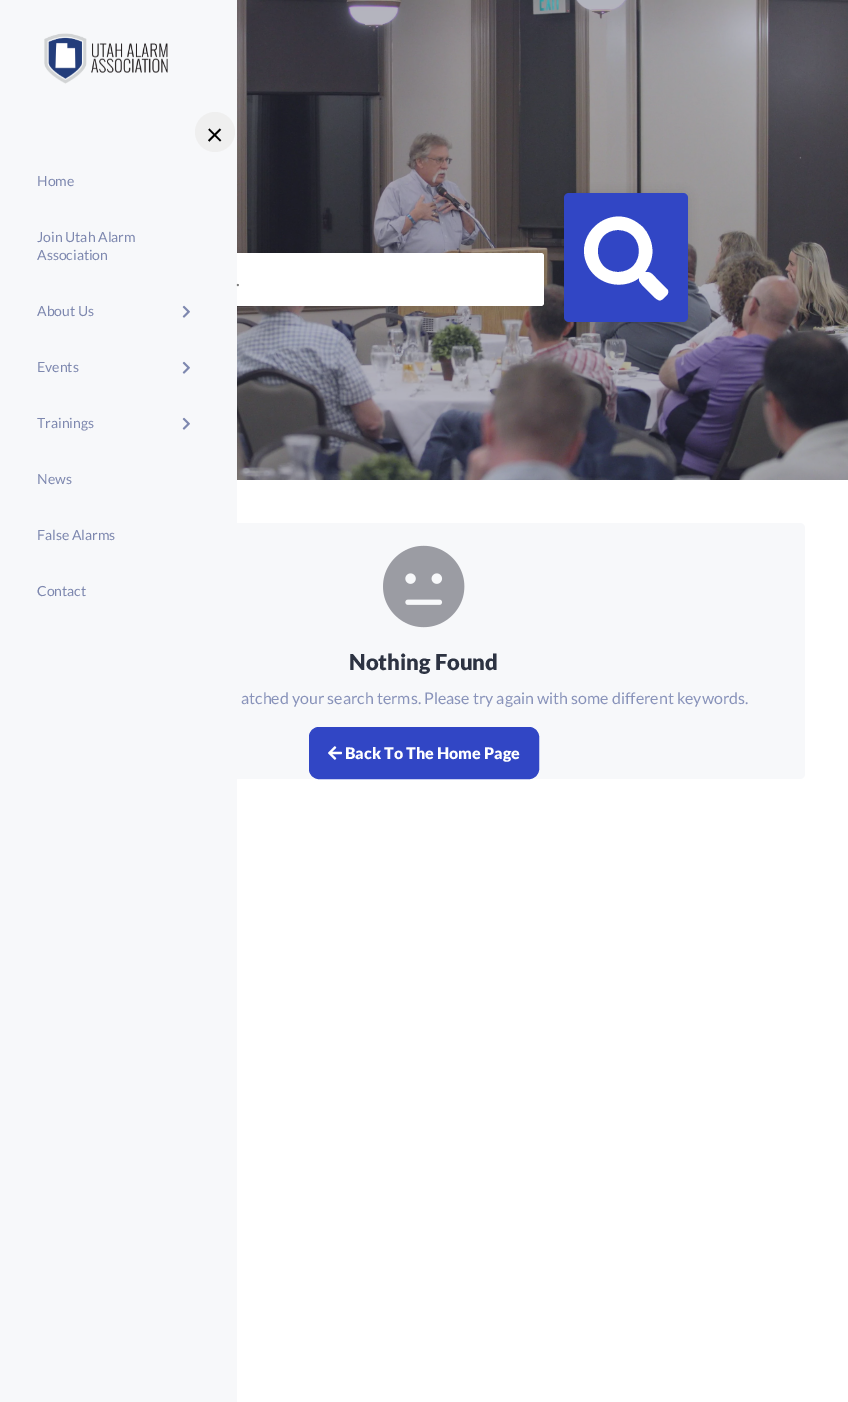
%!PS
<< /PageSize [848 1402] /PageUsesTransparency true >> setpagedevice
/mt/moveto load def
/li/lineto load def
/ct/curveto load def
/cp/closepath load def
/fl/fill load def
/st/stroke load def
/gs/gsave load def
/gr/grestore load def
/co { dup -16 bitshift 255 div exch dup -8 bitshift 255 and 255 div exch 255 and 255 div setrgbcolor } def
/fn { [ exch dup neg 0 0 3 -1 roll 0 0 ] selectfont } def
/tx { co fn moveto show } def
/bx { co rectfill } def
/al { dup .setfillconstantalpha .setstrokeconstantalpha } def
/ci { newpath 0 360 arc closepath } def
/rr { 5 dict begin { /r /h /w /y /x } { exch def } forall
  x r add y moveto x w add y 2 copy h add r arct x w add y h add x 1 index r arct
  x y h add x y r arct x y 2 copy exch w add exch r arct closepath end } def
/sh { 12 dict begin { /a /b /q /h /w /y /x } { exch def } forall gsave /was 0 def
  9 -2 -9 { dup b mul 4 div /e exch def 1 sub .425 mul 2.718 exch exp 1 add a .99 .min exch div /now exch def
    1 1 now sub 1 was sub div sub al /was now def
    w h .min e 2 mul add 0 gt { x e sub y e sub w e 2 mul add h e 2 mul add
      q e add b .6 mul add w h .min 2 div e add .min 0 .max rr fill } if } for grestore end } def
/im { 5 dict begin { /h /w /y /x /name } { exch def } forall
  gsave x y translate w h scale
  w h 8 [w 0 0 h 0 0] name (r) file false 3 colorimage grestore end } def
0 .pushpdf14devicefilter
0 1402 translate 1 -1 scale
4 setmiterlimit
0 0 848 1402 16#FFFFFF bx
(media/3.raw) 237 0 611 480 im
16#000000 co
160 253 384 53 3 5 .1 sh
16#FFFFFF co
160 253 384 53 3 rr fl
16#F7F8FA co
43 523 762 256 5 rr fl
0 0 237 1402 16#F7F8FA bx
(media/1.raw) 44 33 124 51 im
16#EFEFEF co
215 132 20 ci fl
(media/2.raw) 182 305 8 13 im
(media/2.raw) 182 361 8 13 im
(media/2.raw) 182 417 8 13 im
16#000000 co
564 193 124 129 5 5 .1 sh
16#3146C5 co
564 193 124 129 5 rr fl
16#FFFFFF co
667 289 mt 656 278 li 651 273 651 272 645 272 ct 652 263 654 252 651 242 ct 649 235 645 228 639 224 ct 610 201 570 236 589 268 ct 599 285 623 290 639 278 ct 639 282 640 282 643 286 ct 654 297 li 659 301 660 302 665 297 ct 667 295 670 292 667 289 ct cp 618 272 mt 591 272 591 230 618 230 ct 646 230 646 272 618 272 ct cp fl
(media/4.raw) 383 545 82 83 im
16#3146C5 co
309.5 727.5 229 51 9.5 rr gs fl gr
st
(media/5.raw) 328 746 14 14 im
(×) 206 145 /Lato-Regular 30 16#000000 tx
(Home) 37 186 /Lato-Regular 14 16#7E88AF tx
(Join Utah Alarm) 37 242 /Lato-Regular 14 16#7E88AF tx
(Association) 37 260 /Lato-Regular 14 16#7E88AF tx
(About Us) 37 316 /Lato-Regular 14 16#7E88AF tx
(Events) 37 372 /Lato-Regular 14 16#7E88AF tx
(Trainings) 37 428 /Lato-Regular 14 16#7E88AF tx
(News) 37 484 /Lato-Regular 14 16#7E88AF tx
(False Alarms) 37 540 /Lato-Regular 14 16#7E88AF tx
(Contact) 37 596 /Lato-Regular 14 16#7E88AF tx
(.) 236 286 /Lato-Regular 18 16#757575 tx
(Nothing Found) 349 670 /Lato-Black 22 16#2D3342 tx
(atched your search terms. Please try again with some different keywords.) 241 704 /Lato-Regular 16 16#8993BA tx
(Back To The Home Page) 345 759 /Lato-Black 16 16#FFFFFF tx
.poppdf14devicefilter showpage
